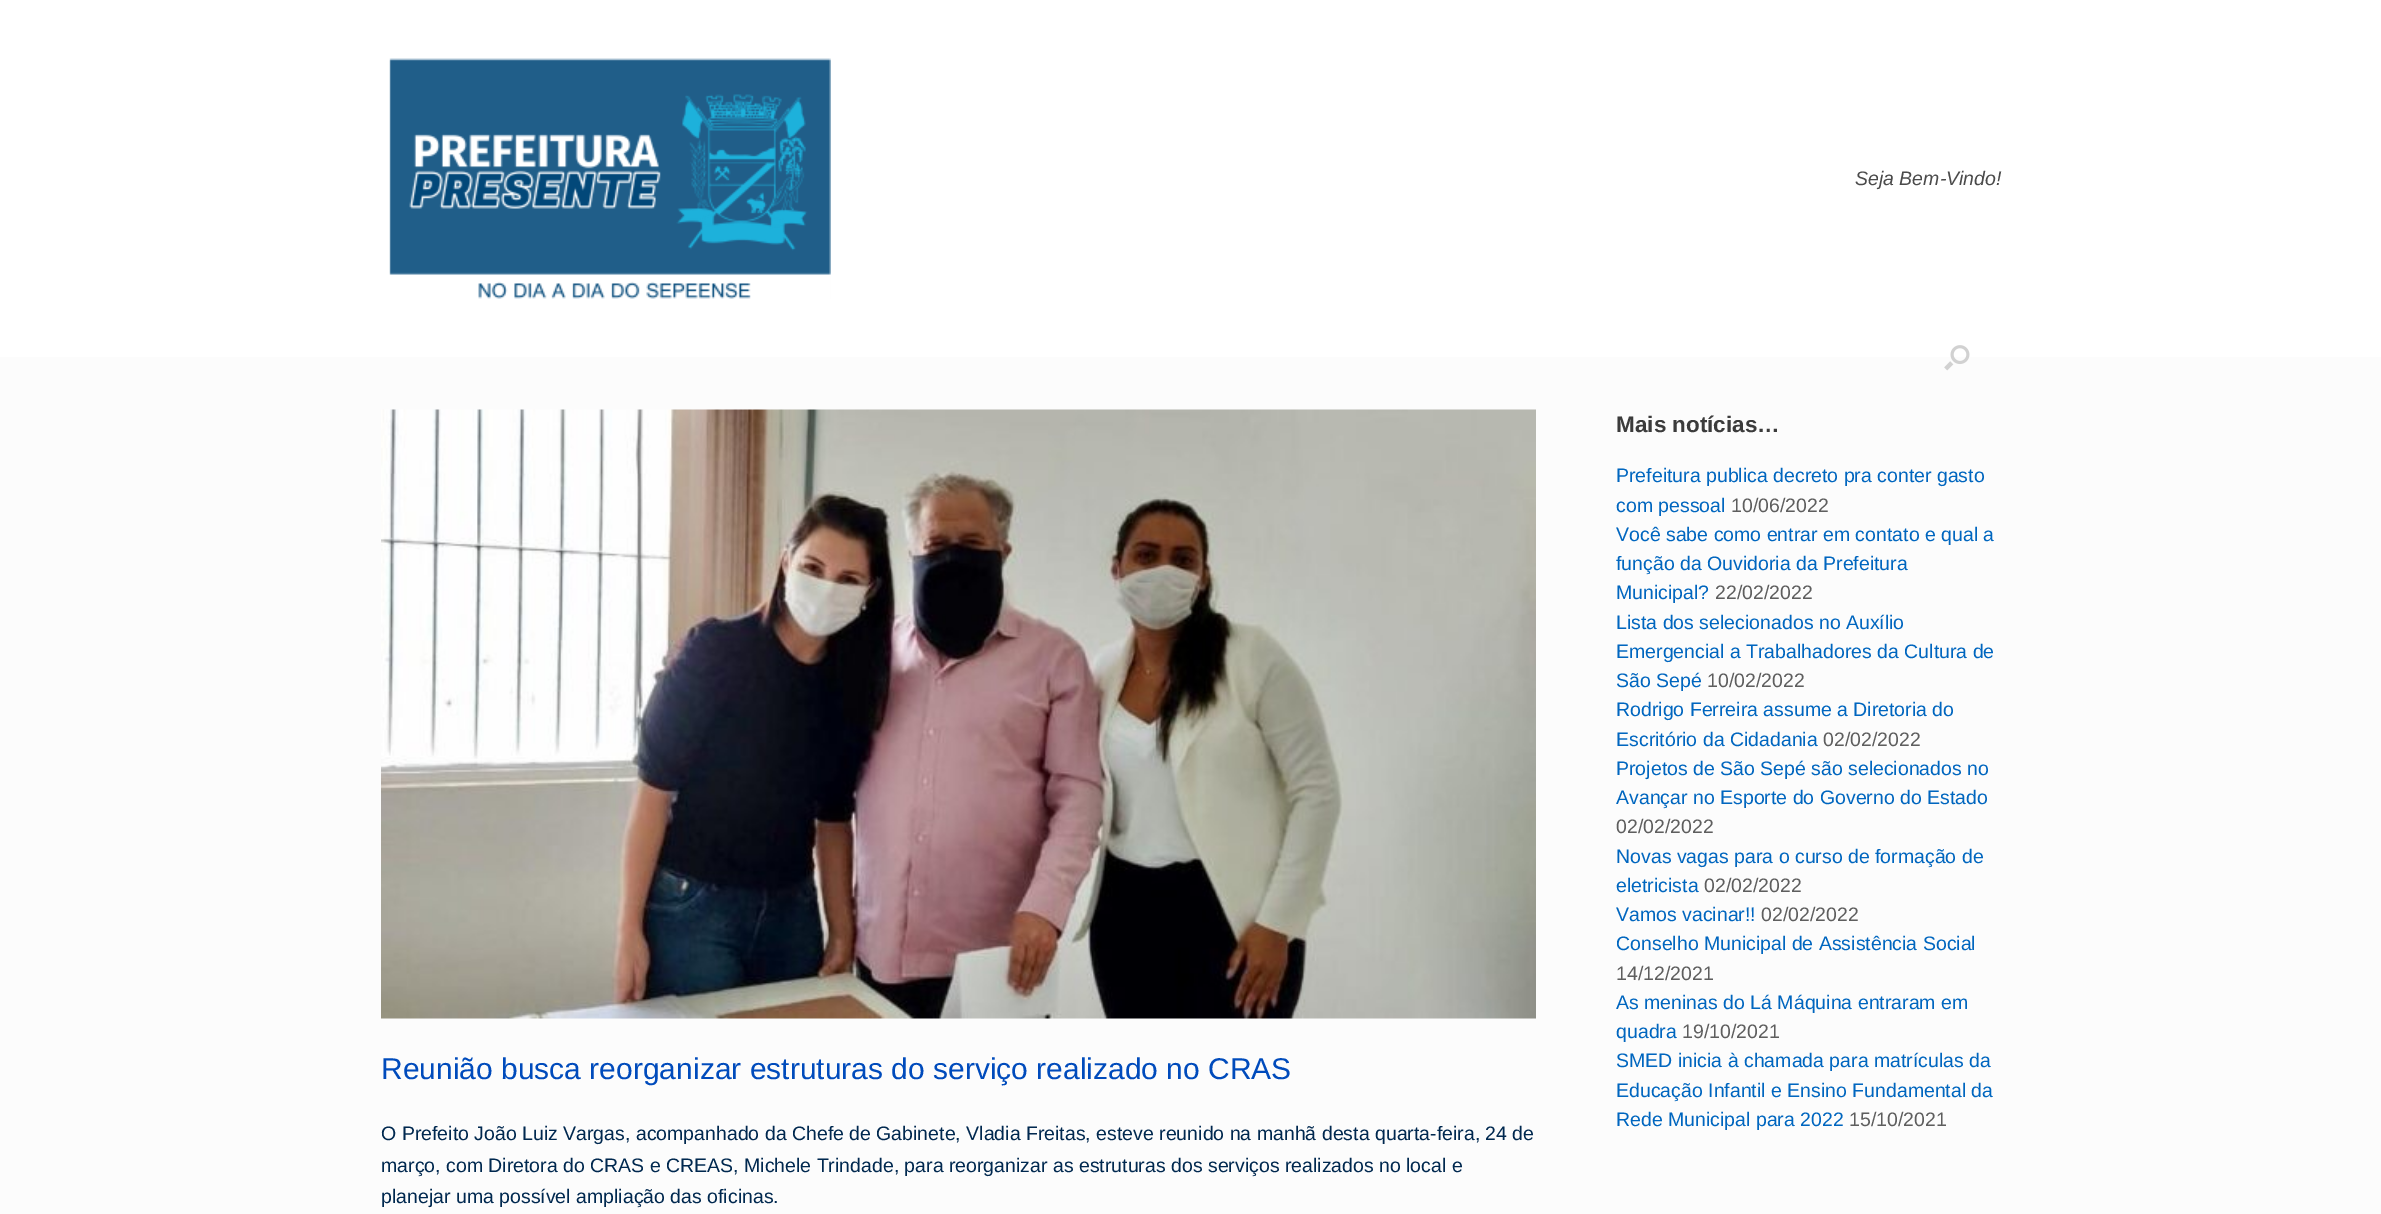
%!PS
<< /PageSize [2381 1214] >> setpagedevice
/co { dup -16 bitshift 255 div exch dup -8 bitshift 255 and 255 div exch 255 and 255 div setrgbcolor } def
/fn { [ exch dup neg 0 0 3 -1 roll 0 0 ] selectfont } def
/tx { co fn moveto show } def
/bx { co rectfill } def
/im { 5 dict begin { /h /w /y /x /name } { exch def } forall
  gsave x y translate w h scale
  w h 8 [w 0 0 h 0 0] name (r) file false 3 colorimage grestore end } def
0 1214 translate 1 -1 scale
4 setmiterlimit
0 0 2381 1214 16#FFFFFF bx
(media/1.raw) 389 58 442 241 im
0 357 2381 857 16#FCFCFC bx
(media/2.raw) 1944 345 26 26 im
(media/3.raw) 381 409 1155 610 im
(Seja Bem-Vindo!) 1855 185 /LiberationSans-Italic 19.5 16#4B4B4B tx
(Reunião busca reorganizar estruturas do serviço realizado no CRAS) 381 1079 /LiberationSans-Regular 30 16#004BBC tx
(O Prefeito João Luiz Vargas, acompanhado da Chefe de Gabinete, Vladia Freitas, esteve reunido na manhã desta quarta-feira, 24 de) 381 1140 /LiberationSans-Regular 19.5 16#00284F tx
(março, com Diretora do CRAS e CREAS, Michele Trindade, para reorganizar as estruturas dos serviços realizados no local e) 381 1172 /LiberationSans-Regular 19.5 16#00284F tx
(planejar uma possível ampliação das oficinas.) 381 1203 /LiberationSans-Regular 19.5 16#00284F tx
(Mais notícias…) 1616 432 /LiberationSans-Bold 22.5 16#3B3B3B tx
(Prefeitura publica decreto pra conter gasto) 1616 482 /LiberationSans-Regular 19.5 16#0066BF tx
(com pessoal) 1616 512 /LiberationSans-Regular 19.5 16#0066BF tx
(10/06/2022) 1731 512 /LiberationSans-Regular 19.5 16#5E5E5E tx
(Você sabe como entrar em contato e qual a) 1616 541 /LiberationSans-Regular 19.5 16#0066BF tx
(função da Ouvidoria da Prefeitura) 1616 570 /LiberationSans-Regular 19.5 16#0066BF tx
(Municipal?) 1616 599 /LiberationSans-Regular 19.5 16#0066BF tx
(22/02/2022) 1715 599 /LiberationSans-Regular 19.5 16#5E5E5E tx
(Lista dos selecionados no Auxílio) 1616 629 /LiberationSans-Regular 19.5 16#0066BF tx
(Emergencial a Trabalhadores da Cultura de) 1616 658 /LiberationSans-Regular 19.5 16#0066BF tx
(São Sepé) 1616 687 /LiberationSans-Regular 19.5 16#0066BF tx
(10/02/2022) 1707 687 /LiberationSans-Regular 19.5 16#5E5E5E tx
(Rodrigo Ferreira assume a Diretoria do) 1616 716 /LiberationSans-Regular 19.5 16#0066BF tx
(Escritório da Cidadania) 1616 746 /LiberationSans-Regular 19.5 16#0066BF tx
(02/02/2022) 1823 746 /LiberationSans-Regular 19.5 16#5E5E5E tx
(Projetos de São Sepé são selecionados no) 1616 775 /LiberationSans-Regular 19.5 16#0066BF tx
(Avançar no Esporte do Governo do Estado) 1616 804 /LiberationSans-Regular 19.5 16#0066BF tx
(02/02/2022) 1616 833 /LiberationSans-Regular 19.5 16#5E5E5E tx
(Novas vagas para o curso de formação de) 1616 863 /LiberationSans-Regular 19.5 16#0066BF tx
(eletricista) 1616 892 /LiberationSans-Regular 19.5 16#0066BF tx
(02/02/2022) 1704 892 /LiberationSans-Regular 19.5 16#5E5E5E tx
(Vamos vacinar!!) 1616 921 /LiberationSans-Regular 19.5 16#0066BF tx
(02/02/2022) 1761 921 /LiberationSans-Regular 19.5 16#5E5E5E tx
(Conselho Municipal de Assistência Social) 1616 950 /LiberationSans-Regular 19.5 16#0066BF tx
(14/12/2021) 1616 980 /LiberationSans-Regular 19.5 16#5E5E5E tx
(As meninas do Lá Máquina entraram em) 1616 1009 /LiberationSans-Regular 19.5 16#0066BF tx
(quadra) 1616 1038 /LiberationSans-Regular 19.5 16#0066BF tx
(19/10/2021) 1682 1038 /LiberationSans-Regular 19.5 16#5E5E5E tx
(SMED inicia à chamada para matrículas da) 1616 1067 /LiberationSans-Regular 19.5 16#0066BF tx
(Educação Infantil e Ensino Fundamental da) 1616 1097 /LiberationSans-Regular 19.5 16#0066BF tx
(Rede Municipal para 2022) 1616 1126 /LiberationSans-Regular 19.5 16#0066BF tx
(15/10/2021) 1849 1126 /LiberationSans-Regular 19.5 16#5E5E5E tx
showpage
